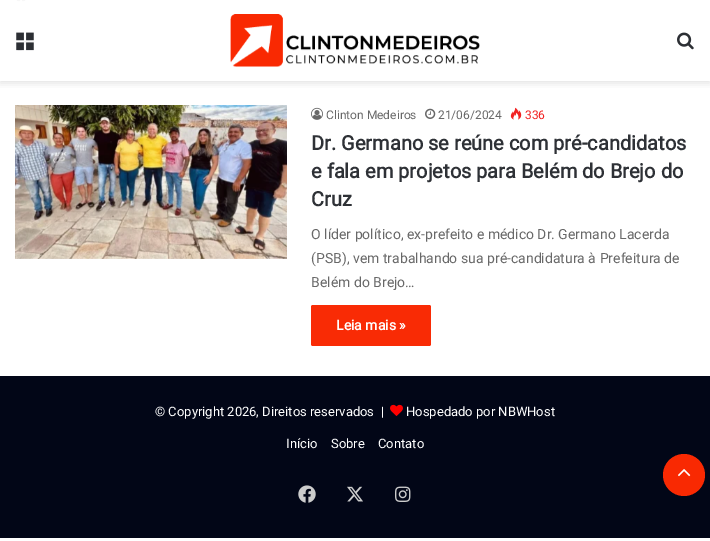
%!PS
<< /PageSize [710 541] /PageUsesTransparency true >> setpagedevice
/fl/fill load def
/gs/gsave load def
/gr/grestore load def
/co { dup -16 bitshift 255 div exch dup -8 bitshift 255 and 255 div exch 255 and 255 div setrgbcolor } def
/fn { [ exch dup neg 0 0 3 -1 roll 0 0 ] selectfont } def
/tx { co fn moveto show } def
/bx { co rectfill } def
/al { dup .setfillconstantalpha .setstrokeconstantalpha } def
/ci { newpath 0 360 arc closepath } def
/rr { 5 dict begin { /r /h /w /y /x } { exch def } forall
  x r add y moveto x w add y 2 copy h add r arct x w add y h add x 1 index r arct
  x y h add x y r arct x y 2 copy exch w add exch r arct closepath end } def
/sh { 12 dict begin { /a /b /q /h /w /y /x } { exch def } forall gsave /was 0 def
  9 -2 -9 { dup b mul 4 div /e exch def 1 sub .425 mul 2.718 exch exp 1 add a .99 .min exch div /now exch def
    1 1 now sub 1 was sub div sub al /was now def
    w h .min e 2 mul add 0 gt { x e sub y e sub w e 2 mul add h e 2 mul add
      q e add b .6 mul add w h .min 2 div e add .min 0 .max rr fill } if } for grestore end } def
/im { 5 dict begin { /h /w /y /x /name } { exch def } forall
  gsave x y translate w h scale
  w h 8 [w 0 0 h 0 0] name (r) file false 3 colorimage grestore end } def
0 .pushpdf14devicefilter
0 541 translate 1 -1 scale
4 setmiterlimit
0 0 710 541 16#FFFFFF bx
(media/4.raw) 16 0 10 2 im
gs
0 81 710 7 rectclip
16#636363 co
0 2 710 81 0 4 .2 sh
gr
(media/1.raw) 16 32 18 19 im
(media/2.raw) 230 14 250 53 im
(media/3.raw) 677 32 17 18 im
(media/5.raw) 15 105 272 154 im
(media/6.raw) 311 107 12 13 im
(media/7.raw) 425 108 11 11 im
(media/8.raw) 510 107 12 13 im
16#F92B05 co
311 305 120 41 2 rr fl
0 376 710 162 16#020617 bx
(media/9.raw) 390 404 13 12 im
(media/10.raw) 298 485 18 18 im
(media/11.raw) 347 486 16 16 im
(media/12.raw) 395 486 16 16 im
16#F92902 co
684 475 21 ci fl
(media/13.raw) 678 469 13 8 im
(Clinton Medeiros) 326 119 /Roboto-Regular 12 16#686868 tx
(21/06/2024) 438 119 /Roboto-Regular 12 16#686868 tx
(336) 525 119 /Roboto-Regular 12 16#F12020 tx
(Dr. Germano se reúne com pré-candidatos) 311 150 /Roboto-Bold 20 16#2E3136 tx
(e fala em projetos para Belém do Brejo do) 311 178 /Roboto-Bold 20 16#2E3136 tx
(Cruz) 311 206 /Roboto-Bold 20 16#2E3136 tx
(O líder político, ex-prefeito e médico Dr. Germano Lacerda) 311 239 /Roboto-Regular 14 16#686868 tx
(\(PSB\), vem trabalhando sua pré-candidatura à Prefeitura de) 311 263 /Roboto-Regular 14 16#686868 tx
(Belém do Brejo…) 311 287 /Roboto-Regular 14 16#686868 tx
(Leia mais ») 336 330 /Roboto-Bold 14 16#FFFFFF tx
(© Copyright 2026, Direitos reservados  |) 155 416 /Roboto-Regular 13 16#FFFFFF tx
(Hospedado por NBWHost) 406 416 /Roboto-Regular 13 16#FFFFFF tx
(Início) 286 448 /Roboto-Regular 13 16#FFFFFF tx
(Sobre) 331 448 /Roboto-Regular 13 16#FFFFFF tx
(Contato) 378 448 /Roboto-Regular 13 16#FFFFFF tx
.poppdf14devicefilter showpage
